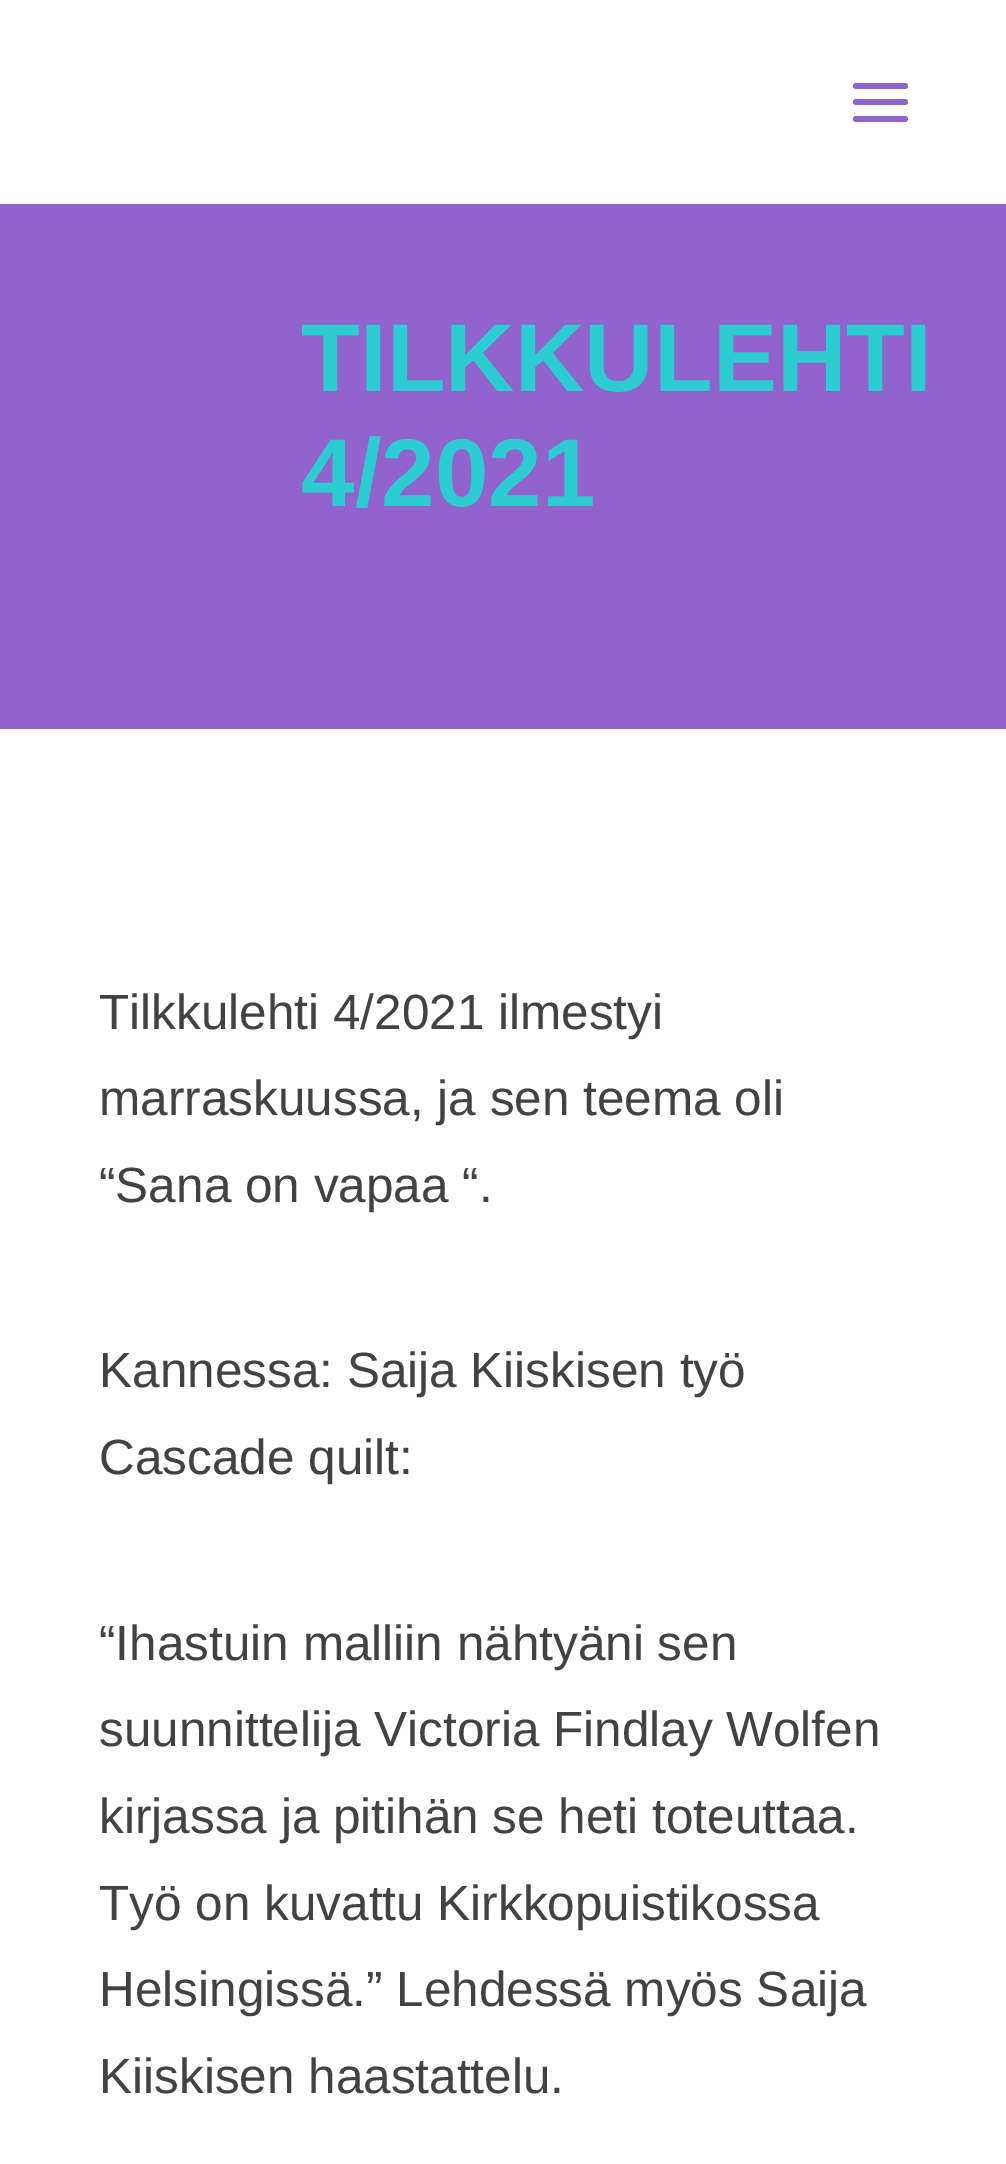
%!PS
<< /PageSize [1006 2164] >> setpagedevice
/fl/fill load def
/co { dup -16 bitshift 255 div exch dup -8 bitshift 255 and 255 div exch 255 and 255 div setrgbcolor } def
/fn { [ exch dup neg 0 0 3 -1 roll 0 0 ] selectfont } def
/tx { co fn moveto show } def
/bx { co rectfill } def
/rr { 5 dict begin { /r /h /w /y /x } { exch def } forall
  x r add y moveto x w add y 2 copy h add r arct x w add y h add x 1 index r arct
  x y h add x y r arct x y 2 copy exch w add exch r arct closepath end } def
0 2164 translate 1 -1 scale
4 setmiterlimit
0 0 1006 2164 16#FFFFFF bx
16#9063CD co
853 99 55 6 3 rr fl
853 83 55 6 3 rr fl
853 116 55 6 3 rr fl
0 204 1006 525 16#9063CD bx
(TILKKULEHTI) 301 391 /LiberationSans-Bold 96.25 16#2DCCD3 tx
(4/2021) 301 506 /LiberationSans-Bold 96.25 16#2DCCD3 tx
(Tilkkulehti 4/2021 ilmestyi) 99 1029 /LiberationSans-Regular 49.5 16#424242 tx
(marraskuussa, ja sen teema oli) 99 1115 /LiberationSans-Regular 49.5 16#424242 tx
(“Sana on vapaa “.) 99 1202 /LiberationSans-Regular 49.5 16#424242 tx
(Kannessa: Saija Kiiskisen työ) 99 1387 /LiberationSans-Regular 49.5 16#424242 tx
(Cascade quilt:) 99 1474 /LiberationSans-Regular 49.5 16#424242 tx
(“Ihastuin malliin nähtyäni sen) 99 1660 /LiberationSans-Regular 49.5 16#424242 tx
(suunnittelija Victoria Findlay Wolfen) 99 1746 /LiberationSans-Regular 49.5 16#424242 tx
(kirjassa ja pitihän se heti toteuttaa.) 99 1833 /LiberationSans-Regular 49.5 16#424242 tx
(Työ on kuvattu Kirkkopuistikossa) 99 1920 /LiberationSans-Regular 49.5 16#424242 tx
(Helsingissä.” Lehdessä myös Saija) 99 2006 /LiberationSans-Regular 49.5 16#424242 tx
(Kiiskisen haastattelu.) 99 2093 /LiberationSans-Regular 49.5 16#424242 tx
showpage
